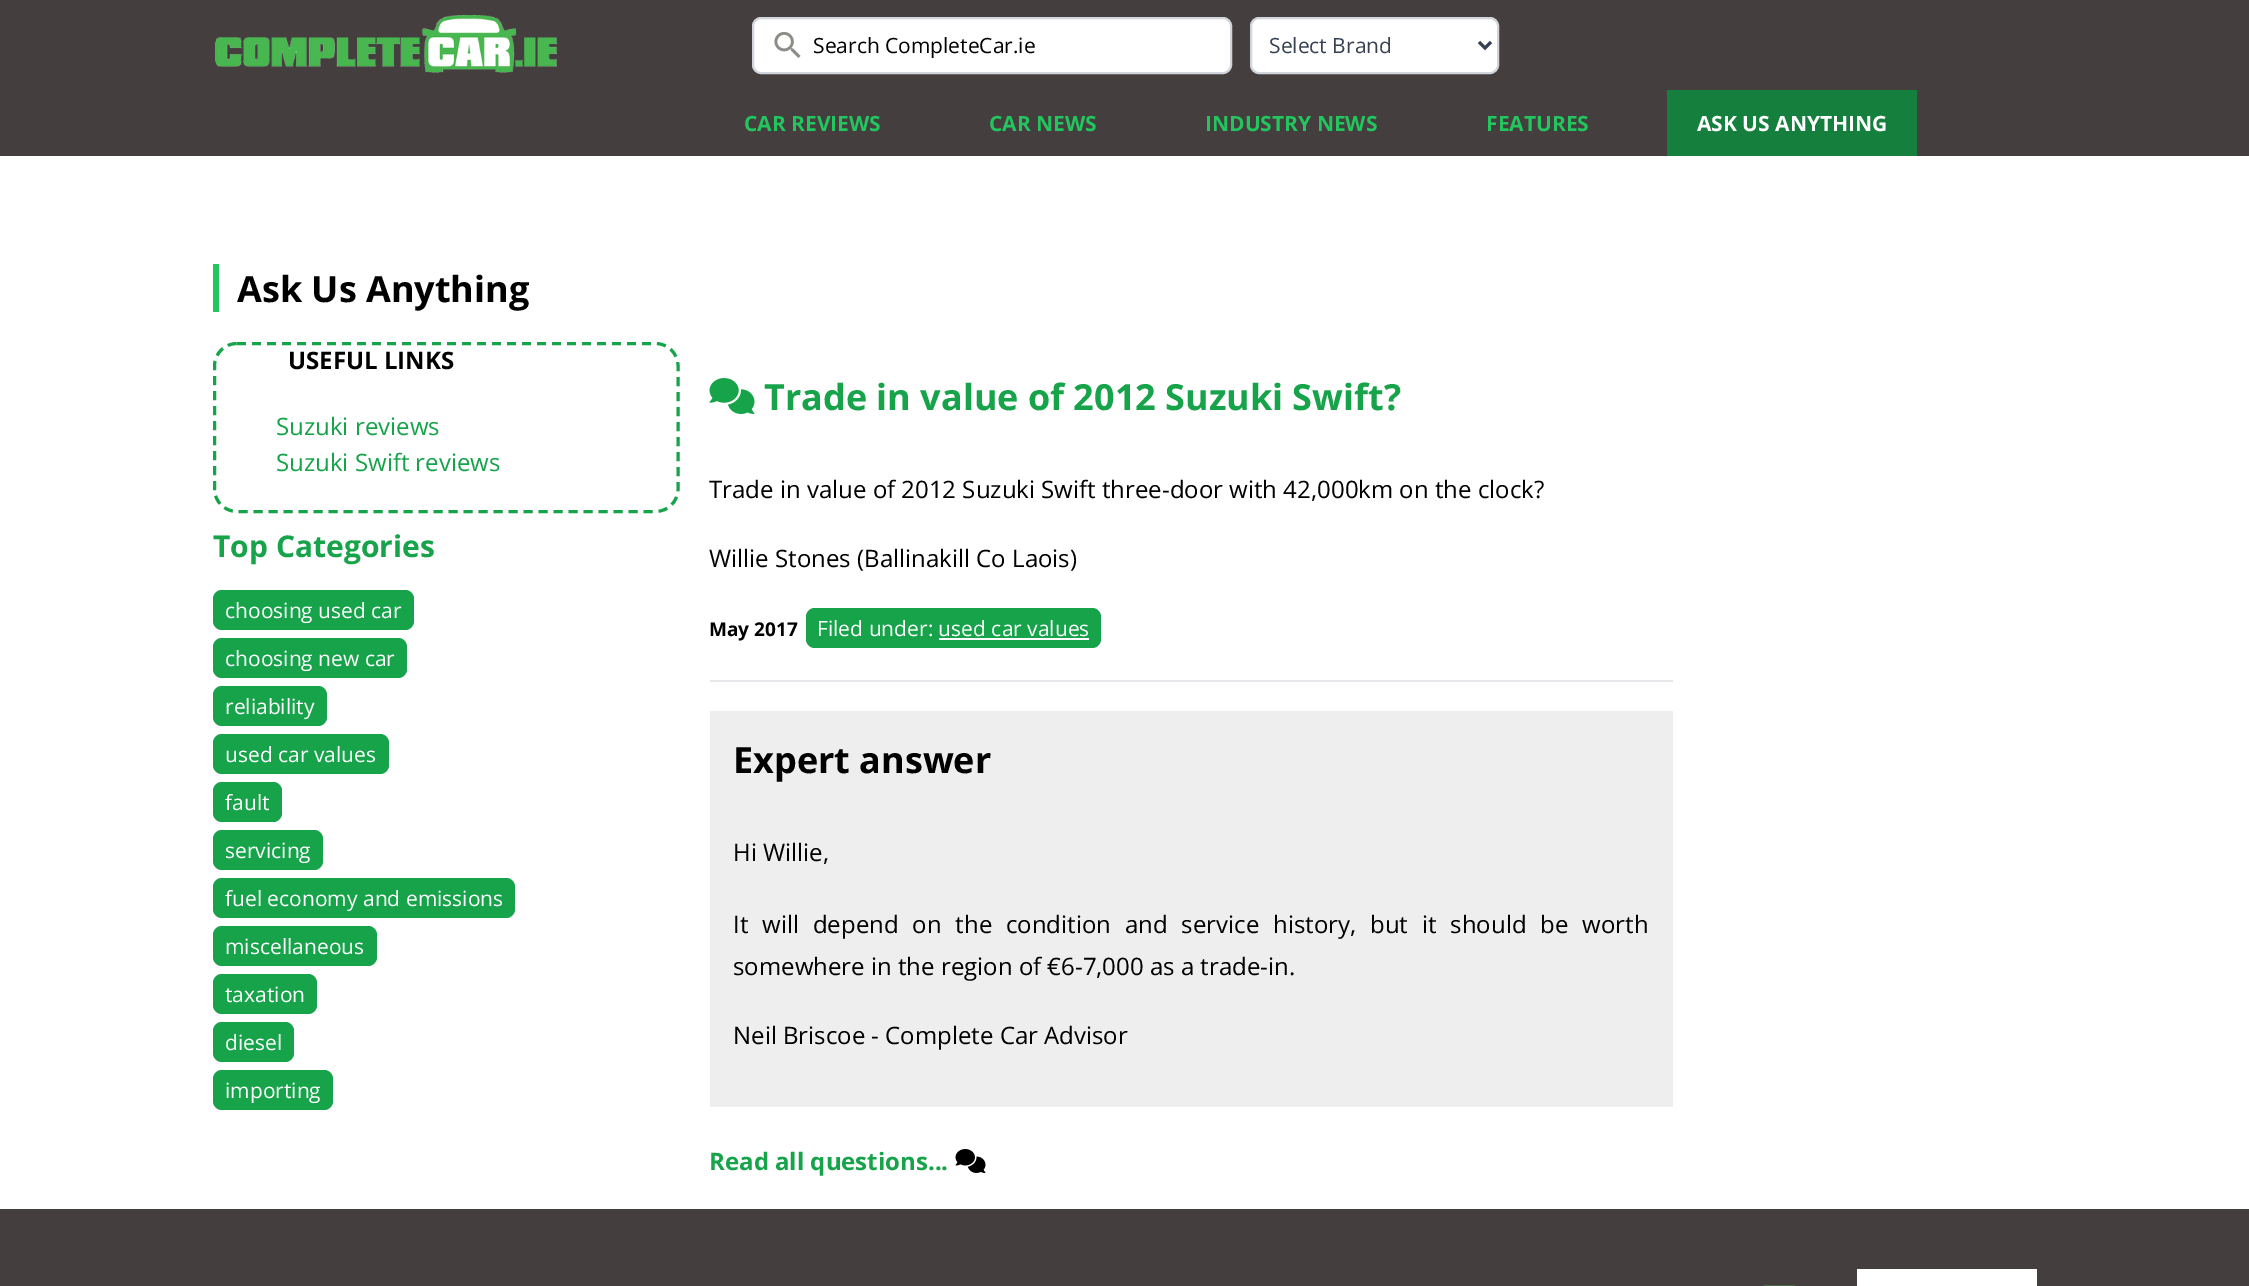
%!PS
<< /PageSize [2249 1286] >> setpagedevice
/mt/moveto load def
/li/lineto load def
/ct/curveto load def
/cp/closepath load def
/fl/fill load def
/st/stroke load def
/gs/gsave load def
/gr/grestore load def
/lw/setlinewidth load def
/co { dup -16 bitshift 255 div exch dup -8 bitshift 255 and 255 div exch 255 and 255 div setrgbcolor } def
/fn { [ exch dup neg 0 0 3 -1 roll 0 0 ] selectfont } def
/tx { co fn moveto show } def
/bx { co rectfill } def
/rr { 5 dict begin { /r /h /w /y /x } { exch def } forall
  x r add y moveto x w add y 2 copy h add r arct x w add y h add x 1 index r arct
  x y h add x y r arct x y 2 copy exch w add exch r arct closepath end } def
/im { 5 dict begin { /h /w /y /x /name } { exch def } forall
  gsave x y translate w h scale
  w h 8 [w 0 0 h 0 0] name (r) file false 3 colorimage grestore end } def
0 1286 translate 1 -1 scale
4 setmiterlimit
0 0 2249 1286 16#FFFFFF bx
0 0 2249 156 16#443E3E bx
(media/1.raw) 214 15 343 58 im
16#FFFFFF co
753 18 478 55 8 rr gs fl gr
16#D1D5DB co
2 lw
st
(media/2.raw) 774 31 27 27 im
16#FFFFFF co
1251 18 247 55 8 rr gs fl gr
16#D1D5DB co
st
16#374151 co
3 lw
1479 42 mt 1485 48 li 1491 42 li st
1667 90 250 66 16#15803D bx
213 264 6 48 16#22C55E bx
16#16A34A co
[9 6] 0 setdash
237 343.5 mt 655.5 343.5 li 668 343.5 678 353.5 678 366 ct 678 489 li 678 501.5 668 511.5 655.5 511.5 ct 237 511.5 li 224.5 511.5 214.5 501.5 214.5 489 ct 214.5 366 li 214.5 353.5 224.5 343.5 237 343.5 ct cp st
213 590 201 40 9 rr fl
213 638 194 40 9 rr fl
213 686 114 40 9 rr fl
213 734 176 40 9 rr fl
213 782 69 40 9 rr fl
213 830 110 40 9 rr fl
213 878 302 40 9 rr fl
213 926 164 40 9 rr fl
213 974 104 40 9 rr fl
213 1022 81 40 9 rr fl
213 1070 120 40 9 rr fl
(media/3.raw) 709 378 46 36 im
815 608 mt 939 608 li 939 648 li 815 648 li 810 648 806 644 806 639 ct 806 617 li 806 612 810 608 815 608 ct cp fl
939 608 mt 1092 608 li 1097 608 1101 612 1101 617 ct 1101 639 li 1101 644 1097 648 1092 648 ct 939 648 li cp fl
939 638 150 2 16#FFFFFF bx
710 680 963 2 16#E5E7EB bx
710 711 963 396 16#EEEEEE bx
(media/4.raw) 955 1149 31 24 im
0 1209 2249 77 16#443E3E bx
(media/5.raw) 1763 1285 33 1 im
1857 1269 180 17 16#FFFFFF bx
(Search CompleteCar.ie) 813 53 /OpenSans-Regular 21 16#000000 tx
(Select Brand) 1269 53 /OpenSans-Regular 21 16#374151 tx
(CAR REVIEWS) 744 131 /OpenSans-Bold 21 16#22C55E tx
(CAR NEWS) 989 131 /OpenSans-Bold 21 16#22C55E tx
(INDUSTRY NEWS) 1205 131 /OpenSans-Bold 21 16#22C55E tx
(FEATURES) 1486 131 /OpenSans-Bold 21 16#22C55E tx
(ASK US ANYTHING) 1697 131 /OpenSans-Bold 21 16#FFFFFF tx
(Ask Us Anything) 237 302 /OpenSans-Bold 36 16#000000 tx
(USEFUL LINKS) 288 369 /OpenSans-Bold 24 16#000000 tx
(Suzuki reviews) 276 435 /OpenSans-Regular 24 16#16A34A tx
(Suzuki Swift reviews) 276 471 /OpenSans-Regular 24 16#16A34A tx
(Top Categories) 213 557 /OpenSans-Bold 30 16#16A34A tx
(choosing used car) 225 618 /OpenSans-Regular 21 16#FFFFFF tx
(choosing new car) 225 666 /OpenSans-Regular 21 16#FFFFFF tx
(reliability) 225 714 /OpenSans-Regular 21 16#FFFFFF tx
(used car values) 225 762 /OpenSans-Regular 21 16#FFFFFF tx
(fault) 225 810 /OpenSans-Regular 21 16#FFFFFF tx
(servicing) 225 858 /OpenSans-Regular 21 16#FFFFFF tx
(fuel economy and emissions) 225 906 /OpenSans-Regular 21 16#FFFFFF tx
(miscellaneous) 225 954 /OpenSans-Regular 21 16#FFFFFF tx
(taxation) 225 1002 /OpenSans-Regular 21 16#FFFFFF tx
(diesel) 225 1050 /OpenSans-Regular 21 16#FFFFFF tx
(importing) 225 1098 /OpenSans-Regular 21 16#FFFFFF tx
(Trade in value of 2012 Suzuki Swift?) 764 410 /OpenSans-Bold 36 16#16A34A tx
(Trade in value of 2012 Suzuki Swift three-door with 42,000km on the clock?) 709 498 /OpenSans-Regular 24 16#000000 tx
(Willie Stones \(Ballinakill Co Laois\)) 709 567 /OpenSans-Regular 24 16#000000 tx
(May 2017) 709 636 /OpenSans-Bold 19 16#000000 tx
(Filed under: used car values) 817 636 /OpenSans-Regular 21 16#FFFFFF tx
(Expert answer) 733 773 /OpenSans-Bold 36 16#000000 tx
(Hi Willie,) 733 861 /OpenSans-Regular 24 16#000000 tx
733 933 mt 7.6 0 32 (It will depend on the condition and service history, but it should be worth) widthshow
(somewhere in the region of €6-7,000 as a trade-in.) 733 975 /OpenSans-Regular 24 16#000000 tx
(Neil Briscoe - Complete Car Advisor) 733 1044 /OpenSans-Regular 24 16#000000 tx
(Read all questions...) 709 1170 /OpenSans-Bold 24 16#16A34A tx
showpage
